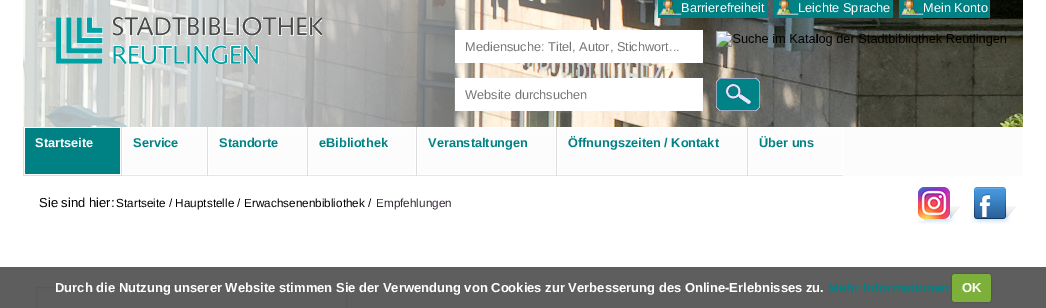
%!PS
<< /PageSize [1046 308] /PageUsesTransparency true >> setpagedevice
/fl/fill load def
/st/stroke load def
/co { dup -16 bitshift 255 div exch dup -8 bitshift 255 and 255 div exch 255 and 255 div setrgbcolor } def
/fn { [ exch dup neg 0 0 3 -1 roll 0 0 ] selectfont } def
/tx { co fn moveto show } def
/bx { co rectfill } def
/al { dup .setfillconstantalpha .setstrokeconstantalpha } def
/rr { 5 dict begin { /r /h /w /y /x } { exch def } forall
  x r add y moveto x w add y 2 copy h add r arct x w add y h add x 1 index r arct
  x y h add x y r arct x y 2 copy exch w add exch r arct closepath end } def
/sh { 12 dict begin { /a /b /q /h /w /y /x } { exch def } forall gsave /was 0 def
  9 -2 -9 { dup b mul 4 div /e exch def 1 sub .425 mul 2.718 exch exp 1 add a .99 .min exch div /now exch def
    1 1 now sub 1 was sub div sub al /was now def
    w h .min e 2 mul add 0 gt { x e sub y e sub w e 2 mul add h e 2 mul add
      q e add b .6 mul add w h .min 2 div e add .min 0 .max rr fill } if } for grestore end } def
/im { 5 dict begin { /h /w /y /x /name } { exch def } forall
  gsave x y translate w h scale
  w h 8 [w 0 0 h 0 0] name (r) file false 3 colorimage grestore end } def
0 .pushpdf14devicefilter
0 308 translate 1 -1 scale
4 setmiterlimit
0 0 1046 308 16#FFFFFF bx
0 267 1046 41 16#5E5E5E bx
(media/1.raw) 23 0 1000 127 im
658 0 110 18 16#008285 bx
(media/2.raw) 661 0 15 16 im
774 0 119 18 16#008285 bx
(media/2.raw) 777 0 15 16 im
899 0 91 18 16#008285 bx
(media/2.raw) 902 0 15 16 im
(media/3.raw) 56 17 266 47 im
(media/4.raw) 716 31 290 16 im
455 30 248 33 16#FFFFFF bx
455 78 248 33 16#FFFFFF bx
(media/5.raw) 716 78 44 33 im
123 127 900 49 16#FCFCFC bx
23 175 820 1 16#DDDDDD bx
23 127 1 49 16#DDDDDD bx
25 128 95 46 16#008285 bx
121 127 1 49 16#DDDDDD bx
16#FFFFFF co
122.5 127.5 84 47 rectstroke
207 127 1 49 16#DDDDDD bx
16#FFFFFF co
208.5 127.5 98 47 rectstroke
307 127 1 49 16#DDDDDD bx
16#FFFFFF co
308.5 127.5 107 47 rectstroke
416 127 1 49 16#DDDDDD bx
16#FFFFFF co
417.5 127.5 138 47 rectstroke
556 127 1 49 16#DDDDDD bx
16#FFFFFF co
557.5 127.5 189 47 rectstroke
747 127 1 49 16#DDDDDD bx
16#FFFFFF co
748.5 127.5 94 47 rectstroke
(media/6.raw) 916 187 44 37 im
(media/7.raw) 971 187 45 37 im
16#585858 co
36.5 287.5 310 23 1.5 rr st
16#000000 co
952 274 39 28 3 1 .25 sh
16#7DAF3B co
952 274 39 28 3 rr fl
(___Barrierefreiheit) 660 12 /LiberationSans-Regular 12.75 16#FFFFFF tx
(___Leichte Sprache) 777 12 /LiberationSans-Regular 12.75 16#FFFFFF tx
(___Mein Konto) 902 12 /LiberationSans-Regular 12.75 16#FFFFFF tx
(l) 816 43 /LiberationSans-Regular 12.75 16#000000 tx
(Mediensuche: Titel, Autor, Stichwort...) 465 51 /LiberationSans-Regular 12.75 16#757575 tx
(Website durchsuchen) 465 99 /LiberationSans-Regular 12.75 16#757575 tx
(Startseite) 35 147 /LiberationSans-Bold 12.75 16#FFFFFF tx
(Service) 133 147 /LiberationSans-Bold 12.75 16#008285 tx
(Standorte) 219 147 /LiberationSans-Bold 12.75 16#008285 tx
(eBibliothek) 319 147 /LiberationSans-Bold 12.75 16#008285 tx
(Veranstaltungen) 428 147 /LiberationSans-Bold 12.75 16#008285 tx
(Öffnungszeiten / Kontakt) 568 147 /LiberationSans-Bold 12.75 16#008285 tx
(Über uns) 759 147 /LiberationSans-Bold 12.75 16#008285 tx
(Sie sind hier:) 39 207 /LiberationSans-Regular 13 16#000000 tx
(Startseite / Hauptstelle / Erwachsenenbibliothek /) 116 207 /LiberationSans-Regular 11.75 16#000000 tx
(Empfehlungen) 376 207 /LiberationSans-Regular 11.75 16#332C34 tx
(Durch die Nutzung unserer Website stimmen Sie der Verwendung von Cookies zur Verbesserung des Online-Erlebnisses zu.) 55 292 /LiberationSans-Bold 13 16#FFFFFF tx
(Mehr Informationen) 828 292 /LiberationSans-Bold 13 16#008285 tx
(OK) 962 292 /LiberationSans-Bold 13 16#FFFFFF tx
.poppdf14devicefilter showpage
